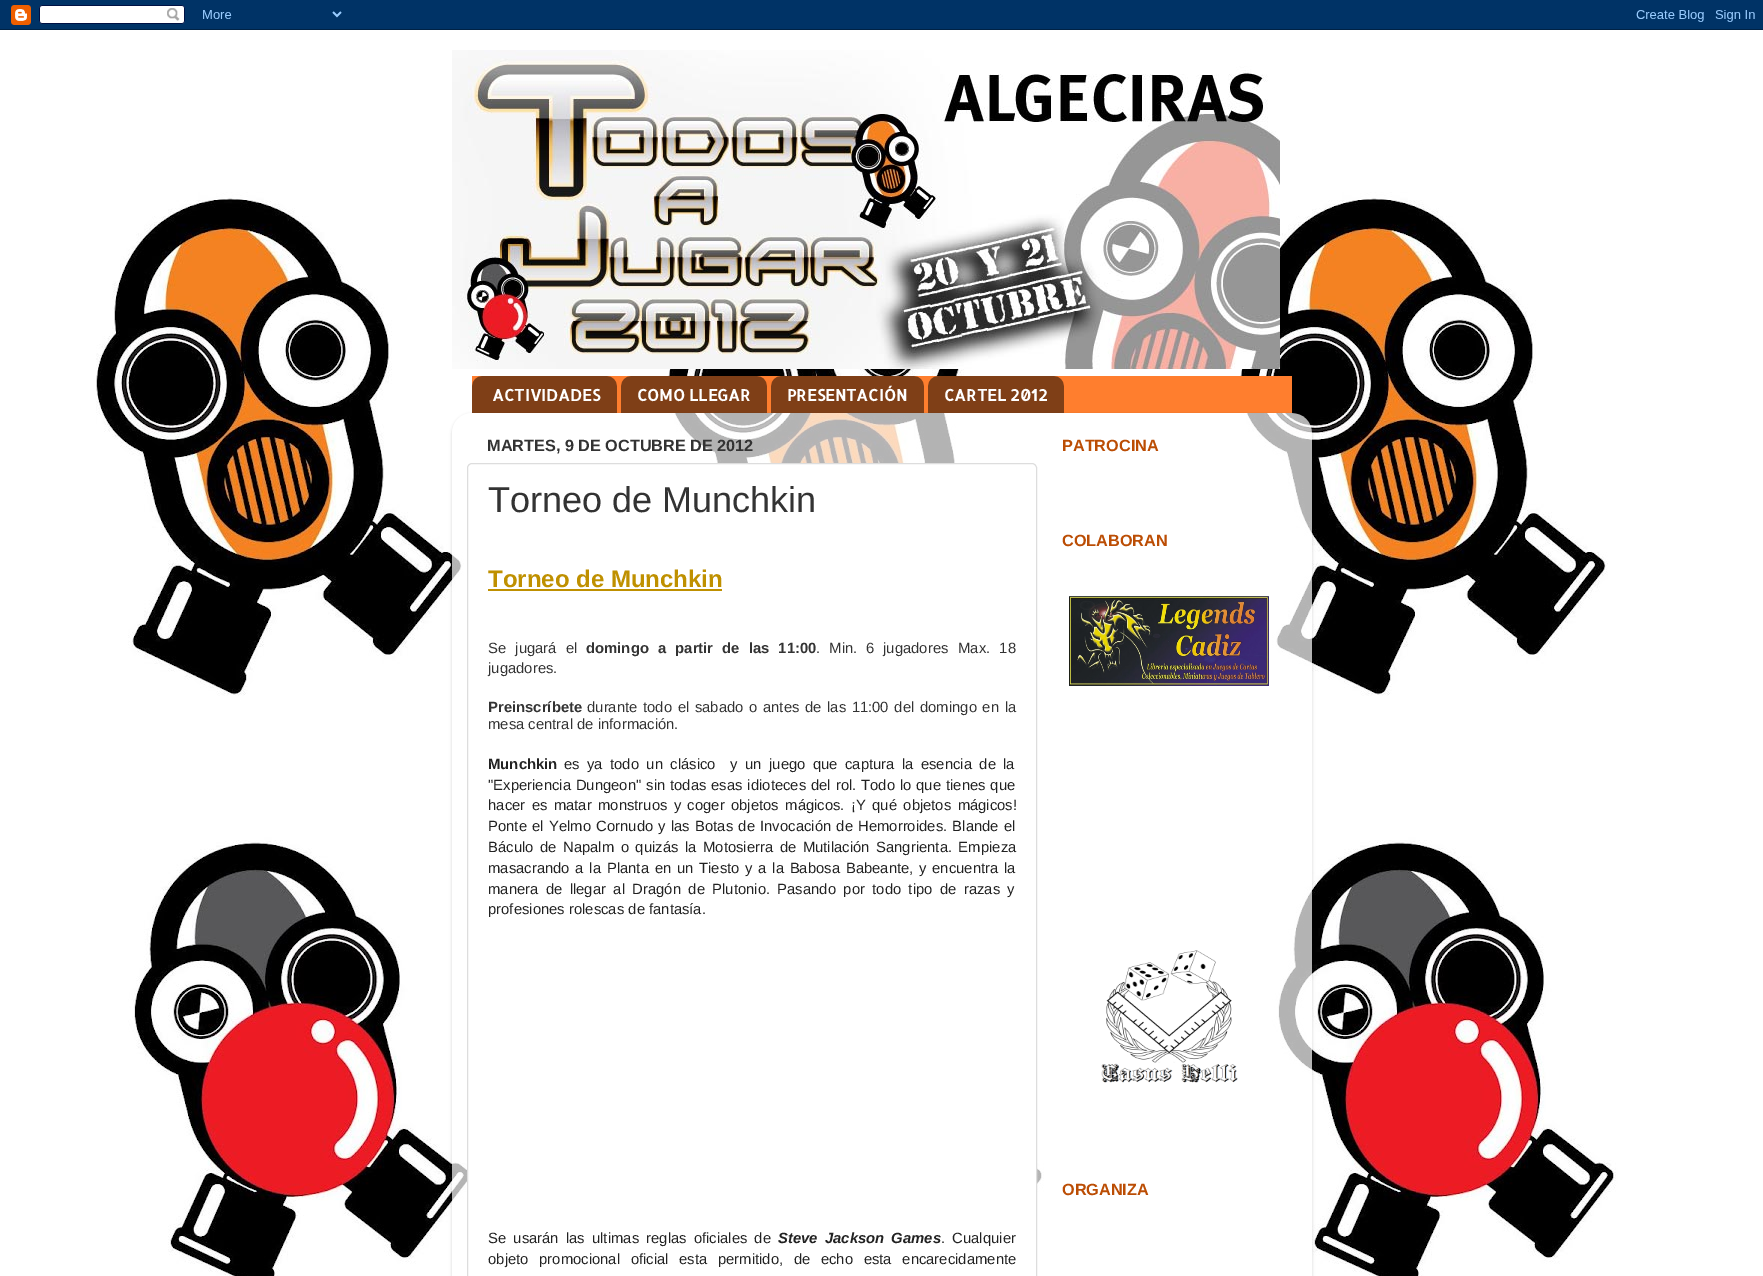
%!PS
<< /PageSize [1763 1276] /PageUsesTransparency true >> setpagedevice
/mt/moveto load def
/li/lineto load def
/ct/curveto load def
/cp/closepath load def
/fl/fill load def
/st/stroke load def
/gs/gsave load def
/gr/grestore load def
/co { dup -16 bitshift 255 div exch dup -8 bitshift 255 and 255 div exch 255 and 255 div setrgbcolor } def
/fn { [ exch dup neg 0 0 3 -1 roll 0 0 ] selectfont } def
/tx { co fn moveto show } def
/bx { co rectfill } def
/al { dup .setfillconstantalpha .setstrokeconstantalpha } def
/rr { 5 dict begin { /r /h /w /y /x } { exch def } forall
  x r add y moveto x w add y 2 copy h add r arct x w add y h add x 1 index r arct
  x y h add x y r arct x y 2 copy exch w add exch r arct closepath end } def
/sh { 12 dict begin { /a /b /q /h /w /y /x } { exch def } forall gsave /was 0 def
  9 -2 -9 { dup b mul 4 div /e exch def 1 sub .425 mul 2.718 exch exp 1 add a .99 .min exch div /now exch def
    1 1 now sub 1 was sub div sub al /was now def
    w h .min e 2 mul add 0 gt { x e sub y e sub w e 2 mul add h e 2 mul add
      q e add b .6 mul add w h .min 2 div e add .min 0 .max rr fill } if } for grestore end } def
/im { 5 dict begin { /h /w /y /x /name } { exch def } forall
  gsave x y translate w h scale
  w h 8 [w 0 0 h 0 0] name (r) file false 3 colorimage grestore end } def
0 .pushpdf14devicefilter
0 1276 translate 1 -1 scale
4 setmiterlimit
0 0 1763 1276 16#FFFFFF bx
(media/1.raw) 0 30 1763 1246 im
(media/2.raw) 0 0 1763 30 im
(media/3.raw) 452 50 828 319 im
472 376 820 37 16#FF7E2E bx
(media/4.raw) 472 376 145 37 im
(media/5.raw) 621 376 146 37 im
(media/6.raw) 771 376 153 37 im
(media/7.raw) 928 376 136 37 im
gs
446 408 mt 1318 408 li 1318 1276 li 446 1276 li cp 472 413 mt 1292 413 li 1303 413 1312 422 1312 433 ct 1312 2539 li 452 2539 li 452 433 li 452 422 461 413 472 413 ct cp eoclip newpath
16#000000 co
452 414 860 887 20 1.5 .15 sh
gr
(media/8.raw) 452 413 860 863 im
16#FFFFFF co
467.5 463.5 569 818 4.5 rr gs fl gr
16#DDDDDD co
st
488 589 234 2 16#BF9000 bx
(media/9.raw) 1069 596 200 90 im
(media/10.raw) 1101 950 137 133 im
(ACTIVIDADES) 492 401 /Allerta-Bold 16 16#FFFFFF tx
(COMO LLEGAR) 637 401 /Allerta-Bold 16 16#FFFFFF tx
(PRESENTACIÓN) 787 401 /Allerta-Bold 16 16#FFFFFF tx
(CARTEL 2012) 944 401 /Allerta-Bold 16 16#FFFFFF tx
(MARTES, 9 DE OCTUBRE DE 2012) 487 451 /LiberationSans-Bold 16.25 16#333333 tx
(Torneo de Munchkin) 488 512 /LiberationSans-Regular 36 16#333333 tx
(Torneo de Munchkin) 488 587 /LiberationSans-Bold 24 16#BF9000 tx
/LiberationSans-Regular 14.85 fn
16#333333 co
488 653 mt 5 0 32 (Se jugará el) widthshow
/LiberationSans-Bold 14.85 fn
586 653 mt 5 0 32 (domingo a partir de las 11:00) widthshow
/LiberationSans-Regular 14.85 fn
816 653 mt 5 0 32 (. Min. 6) widthshow
(jugadores) 883 653 /LiberationSans-Regular 14.85 16#333333 tx
958 653 mt 5 0 32 (Max. 18) widthshow
(jugadores.) 488 673 /LiberationSans-Regular 14.85 16#333333 tx
(Preinscríbete) 488 712 /LiberationSans-Bold 14.85 16#333333 tx
/LiberationSans-Regular 14.85 fn
587 712 mt 1.5 0 32 (durante todo el sabado o antes de las 11:00 del domingo en la) widthshow
(mesa central de información.) 488 729 /LiberationSans-Regular 14.85 16#333333 tx
(Munchkin) 488 769 /LiberationSans-Bold 14.85 16#222222 tx
/LiberationSans-Regular 14.85 fn
564 769 mt 3.25 0 32 (es ya todo un clásico  y un juego que captura la esencia de la) widthshow
488 790 mt .75 0 32 ("Experiencia Dungeon" sin todas esas idioteces del rol. Todo lo que tienes que) widthshow
488 810 mt 2.25 0 32 (hacer es matar monstruos y coger objetos mágicos. ¡Y qué objetos mágicos!) widthshow
488 831 mt 1.1 0 32 (Ponte el Yelmo Cornudo y las Botas de Invocación de Hemorroides. Blande el) widthshow
488 852 mt 2.4 0 32 (Báculo de Napalm o quizás la Motosierra de Mutilación Sangrienta. Empieza) widthshow
488 873 mt 1.6 0 32 (masacrando a la Planta en un Tiesto y a la Babosa Babeante, y encuentra la) widthshow
488 894 mt 3.25 0 32 (manera de llegar al Dragón de Plutonio. Pasando por todo tipo de razas y) widthshow
(profesiones rolescas de fantasía.) 488 914 /LiberationSans-Regular 14.85 16#222222 tx
488 1243 mt 3 0 32 (Se usarán las ultimas reglas oficiales de) widthshow
/LiberationSans-BoldItalic 14.85 fn
778 1243 mt 3 0 32 (Steve Jackson Games) widthshow
/LiberationSans-Regular 14.85 fn
941 1243 mt 3 0 32 (. Cualquier) widthshow
488 1264 mt 6.5 0 32 (objeto promocional oficial esta permitido, de echo esta encarecidamente) widthshow
(PATROCINA) 1062 451 /LiberationSans-Bold 16.25 16#BB4D04 tx
(COLABORAN) 1062 546 /LiberationSans-Bold 16.25 16#BB4D04 tx
(ORGANIZA) 1062 1195 /LiberationSans-Bold 16.25 16#BB4D04 tx
.poppdf14devicefilter showpage
